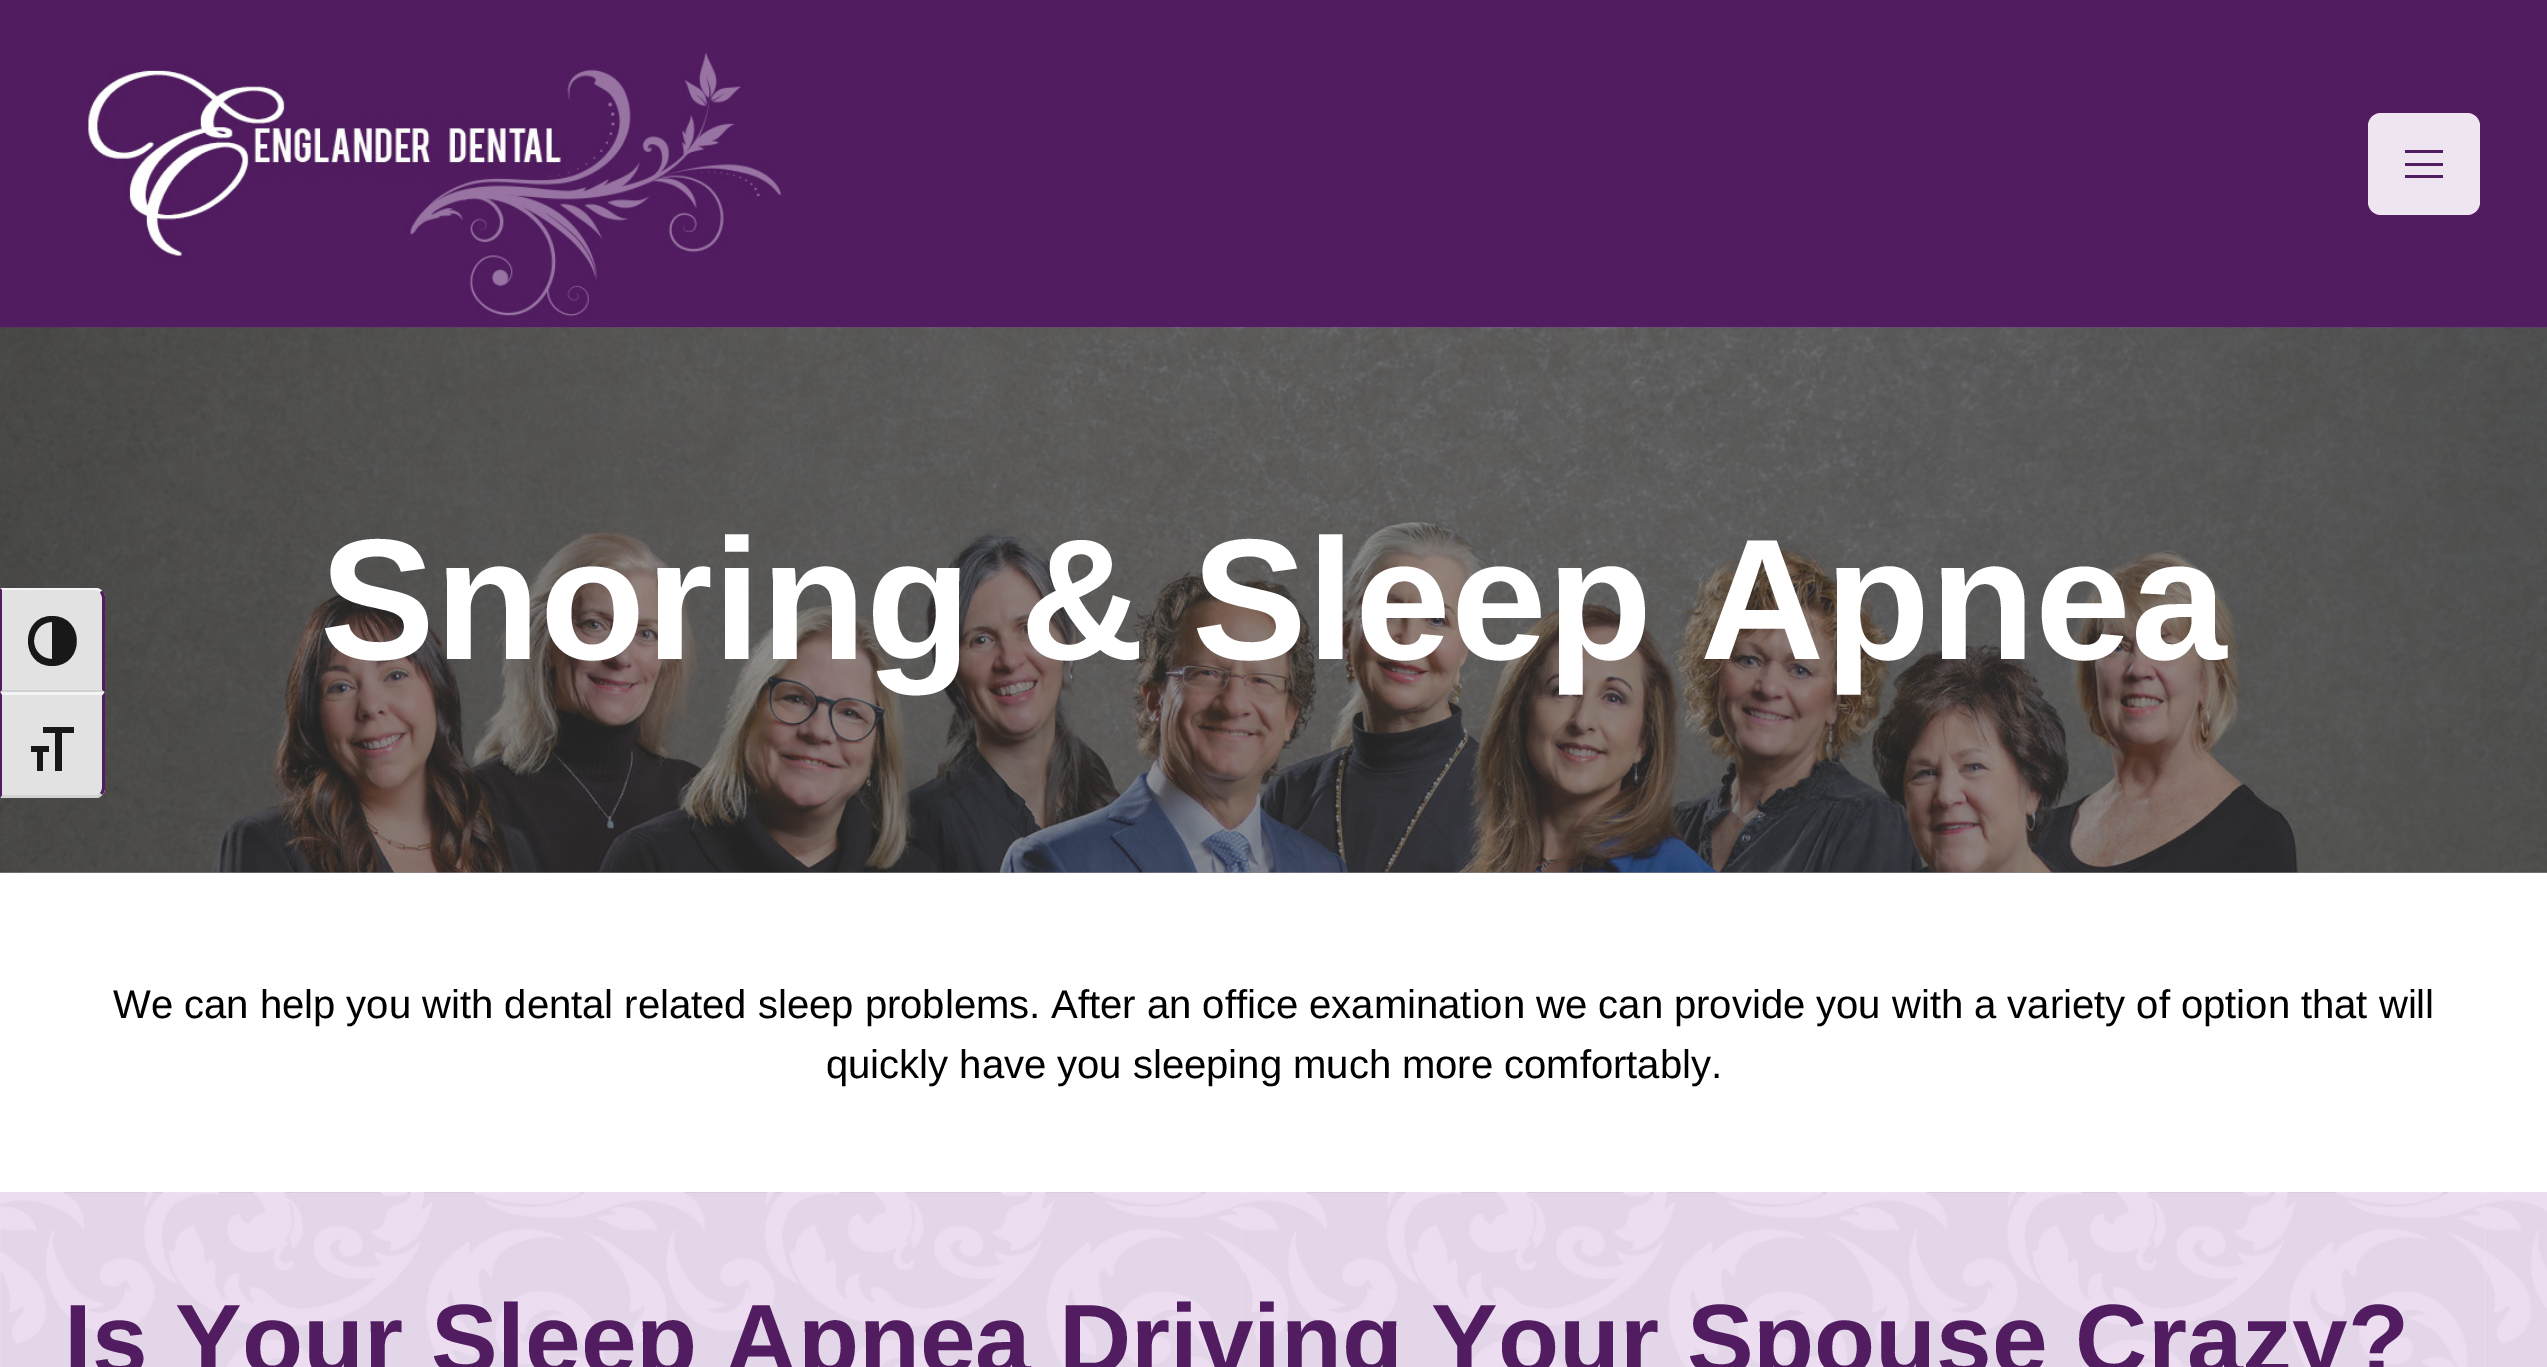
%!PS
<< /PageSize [2547 1367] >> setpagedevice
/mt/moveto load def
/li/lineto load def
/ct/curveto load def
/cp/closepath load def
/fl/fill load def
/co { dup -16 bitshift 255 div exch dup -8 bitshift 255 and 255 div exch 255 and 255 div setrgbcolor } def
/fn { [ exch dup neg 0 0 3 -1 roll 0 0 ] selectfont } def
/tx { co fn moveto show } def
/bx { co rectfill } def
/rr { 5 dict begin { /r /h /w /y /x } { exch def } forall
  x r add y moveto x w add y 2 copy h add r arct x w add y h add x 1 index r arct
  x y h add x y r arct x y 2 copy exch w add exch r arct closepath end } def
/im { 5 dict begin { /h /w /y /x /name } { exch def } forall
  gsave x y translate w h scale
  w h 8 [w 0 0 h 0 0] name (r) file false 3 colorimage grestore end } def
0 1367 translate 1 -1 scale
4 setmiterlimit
0 0 2547 1367 16#FFFFFF bx
0 872 2547 1 16#909090 bx
0 0 2547 328 16#511C60 bx
(media/1.raw) 88 52 693 265 im
16#EEE5F0 co
2368 113 112 102 13 rr fl
2405 150 38 3 16#511C60 bx
2405 163 38 3 16#511C60 bx
2405 175 38 3 16#511C60 bx
(media/2.raw) 0 327 2547 546 im
16#E2E2E2 co
0 588 mt 95 588 li 100.5 588 105 592.5 105 598 ct 105 693 li 0 693 li cp fl
16#F5F5F5 co
102 591 mt 100 589 98 588 95 588 ct 0 588 li 2 590 li 95 590 li 97 590 99 591 100 592 ct cp fl
16#511C60 co
102 591 mt 104 592 105 595 105 598 ct 105 692 li 102 690 li 102 598 li 102 596 101 594 100 592 ct cp fl
16#D2D2D2 co
104 692 mt 0 692 li 2 690 li 102 690 li cp fl
16#511C60 co
2 590 mt 2 690 li 0 692 li 0 588 li cp fl
16#181818 co
52 616 mt 20 616 20 666 52 666 ct 85 666 85 616 52 616 ct cp 34 641 mt 34 630 42 622 52 622 ct 52 659 li 42 659 34 651 34 641 ct cp fl
16#E2E2E2 co
0 693 mt 105 693 li 105 788 li 105 793.5 100.5 798 95 798 ct 0 798 li cp fl
16#F5F5F5 co
0 692 mt 2 695 li 102 695 li 102 696 li 105 692 li cp fl
16#511C60 co
105 692 mt 102 696 li 102 788 li 102 790 101 792 100 793 ct 102 795 li 104 793 105 790 105 788 ct cp fl
16#D2D2D2 co
98 798 mt 0 798 li 2 795 li 97 795 li 100 793 li 102 795 li cp fl
16#511C60 co
2 695 mt 0 692 li 0 798 li 2 795 li cp fl
16#181818 co
31 746 mt 49 746 li 49 752 li 43 752 li 43 771 li 37 771 li 37 752 li 31 752 li cp 74 733 mt 62 733 li 62 771 li 55 771 li 55 733 li 43 733 li 43 727 li 74 727 li cp fl
(media/3.raw) 0 1192 2547 175 im
(Snoring & Sleep Apnea) 320 659 /Arimo-Bold 172.5 16#FFFFFF tx
(We can help you with dental related sleep problems. After an office examination we can provide you with a variety of option that will) 113 1018 /Arimo-Regular 40 16#000000 tx
(quickly have you sleeping much more comfortably.) 826 1078 /Arimo-Regular 40 16#000000 tx
(Is Your Sleep Apnea Driving Your Spouse Crazy?) 64 1374 /Arimo-Bold 100 16#511C60 tx
showpage
